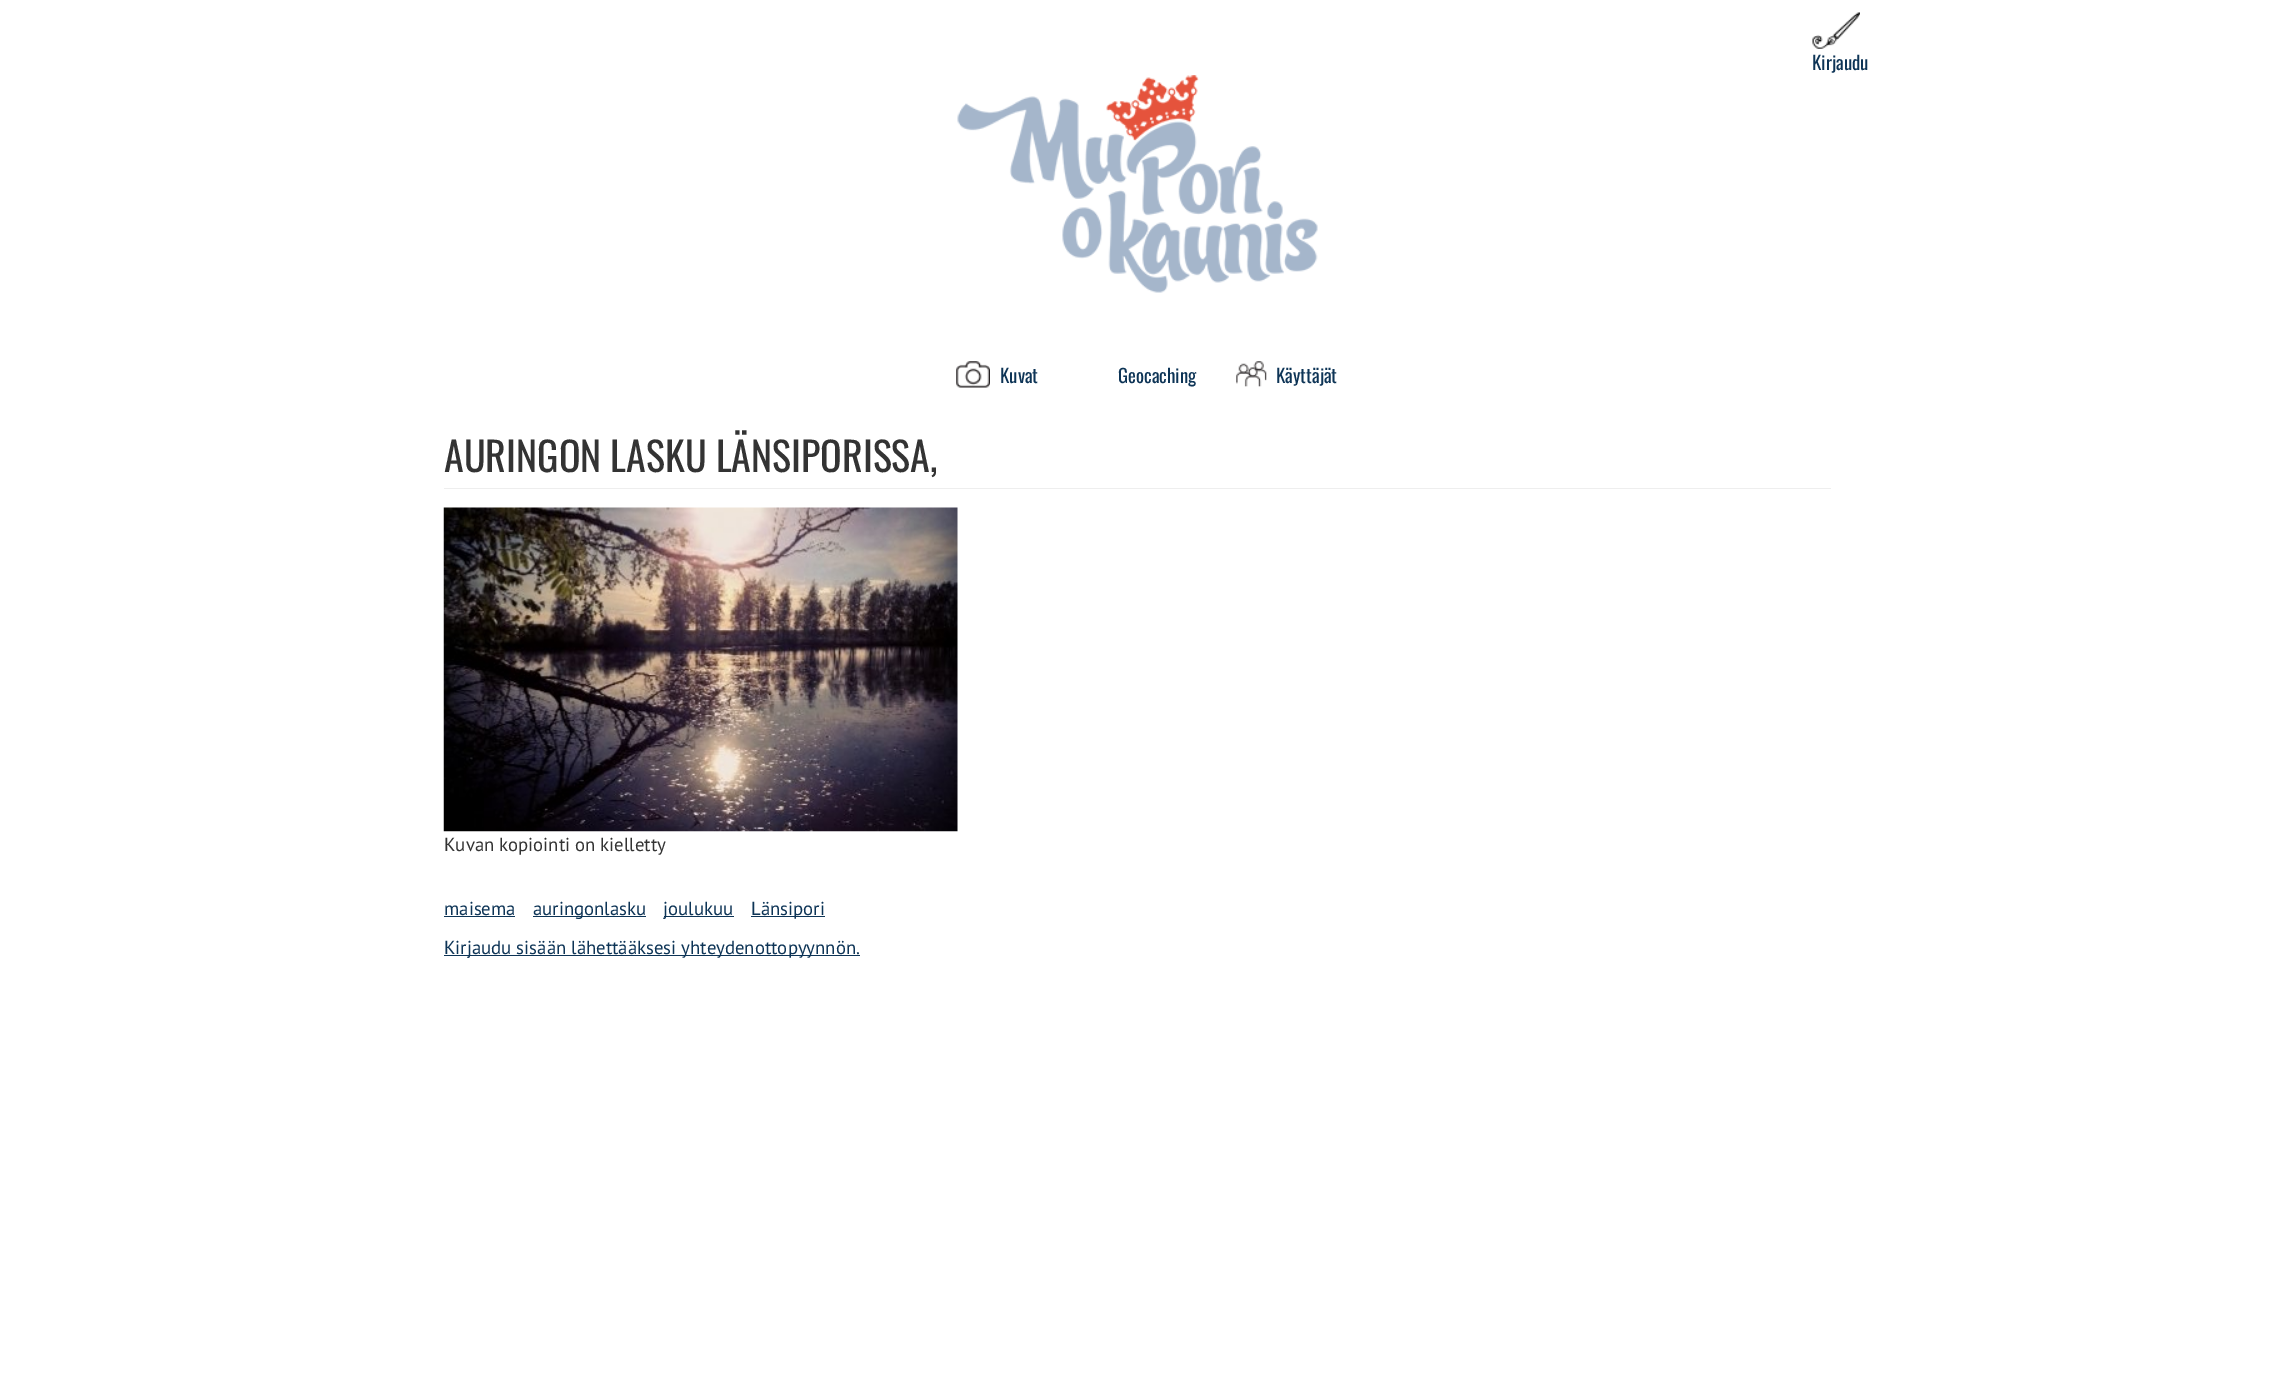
%!PS
<< /PageSize [2275 1396] >> setpagedevice
/co { dup -16 bitshift 255 div exch dup -8 bitshift 255 and 255 div exch 255 and 255 div setrgbcolor } def
/fn { [ exch dup neg 0 0 3 -1 roll 0 0 ] selectfont } def
/tx { co fn moveto show } def
/bx { co rectfill } def
/im { 5 dict begin { /h /w /y /x /name } { exch def } forall
  gsave x y translate w h scale
  w h 8 [w 0 0 h 0 0] name (r) file false 3 colorimage grestore end } def
0 1396 translate 1 -1 scale
4 setmiterlimit
0 0 2275 1396 16#FFFFFF bx
(media/1.raw) 1812 12 48 37 im
(media/2.raw) 957 75 361 218 im
(media/3.raw) 956 361 34 27 im
(media/4.raw) 1236 361 31 26 im
444 488 1387 1 16#EEEEEE bx
(media/5.raw) 443 507 515 325 im
444 916 71 1 16#0D3456 bx
533 916 113 1 16#0D3456 bx
664 916 70 1 16#0D3456 bx
751 916 74 1 16#0D3456 bx
444 955 416 1 16#0D3456 bx
(Kirjaudu) 1812 70 /Oswald-Regular 18.75 16#0D3456 tx
(Kuvat) 1000 383 /Oswald-Regular 18.75 16#0D3456 tx
(Geocaching) 1118 383 /Oswald-Regular 18.75 16#0D3456 tx
(Käyttäjät) 1276 383 /Oswald-Regular 18.75 16#0D3456 tx
(AURINGON LASKU LÄNSIPORISSA,) 444 472 /Oswald-Regular 40 16#333333 tx
(Kuvan kopiointi on kielletty) 444 851 /PTSans-Regular 18.75 16#333333 tx
(maisema) 444 915 /PTSans-Regular 18.75 16#0D3456 tx
(auringonlasku) 533 915 /PTSans-Regular 18.75 16#0D3456 tx
(joulukuu) 663 915 /PTSans-Regular 18.75 16#0D3456 tx
(Länsipori) 751 915 /PTSans-Regular 18.75 16#0D3456 tx
(Kirjaudu sisään lähettääksesi yhteydenottopyynnön.) 444 954 /PTSans-Regular 18.75 16#0D3456 tx
showpage
